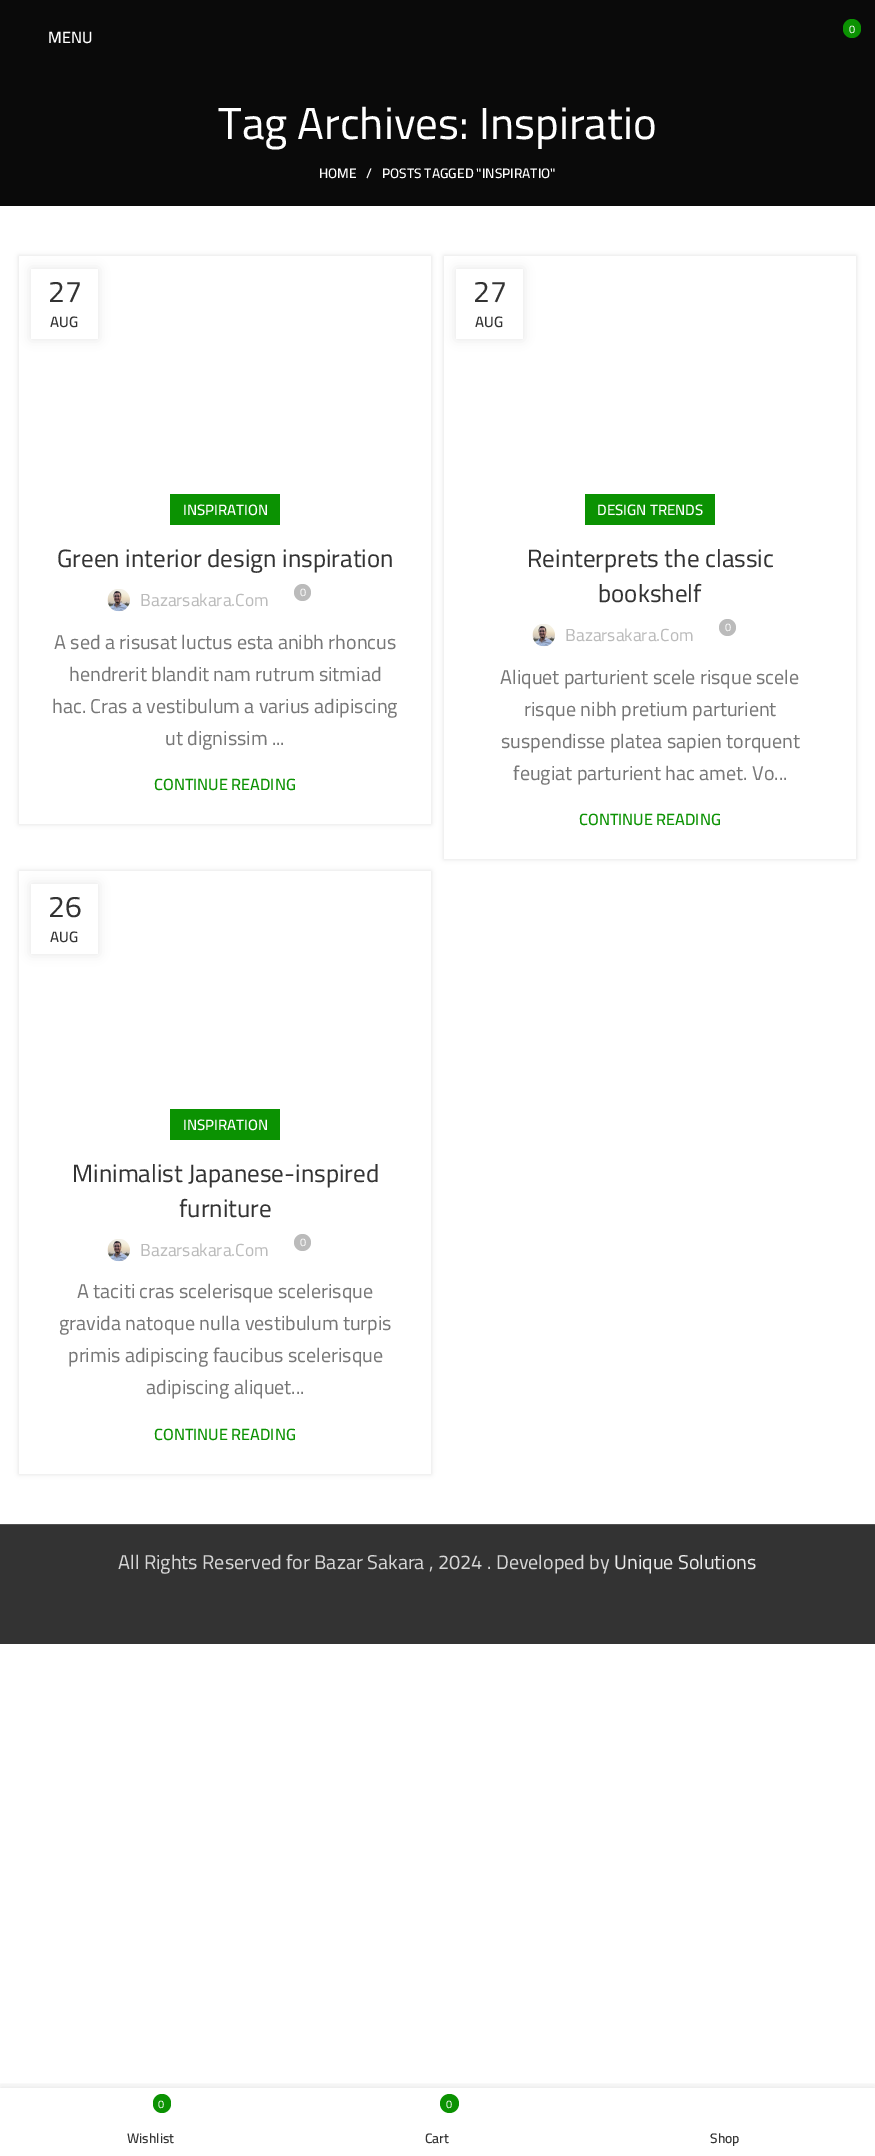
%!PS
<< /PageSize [875 2156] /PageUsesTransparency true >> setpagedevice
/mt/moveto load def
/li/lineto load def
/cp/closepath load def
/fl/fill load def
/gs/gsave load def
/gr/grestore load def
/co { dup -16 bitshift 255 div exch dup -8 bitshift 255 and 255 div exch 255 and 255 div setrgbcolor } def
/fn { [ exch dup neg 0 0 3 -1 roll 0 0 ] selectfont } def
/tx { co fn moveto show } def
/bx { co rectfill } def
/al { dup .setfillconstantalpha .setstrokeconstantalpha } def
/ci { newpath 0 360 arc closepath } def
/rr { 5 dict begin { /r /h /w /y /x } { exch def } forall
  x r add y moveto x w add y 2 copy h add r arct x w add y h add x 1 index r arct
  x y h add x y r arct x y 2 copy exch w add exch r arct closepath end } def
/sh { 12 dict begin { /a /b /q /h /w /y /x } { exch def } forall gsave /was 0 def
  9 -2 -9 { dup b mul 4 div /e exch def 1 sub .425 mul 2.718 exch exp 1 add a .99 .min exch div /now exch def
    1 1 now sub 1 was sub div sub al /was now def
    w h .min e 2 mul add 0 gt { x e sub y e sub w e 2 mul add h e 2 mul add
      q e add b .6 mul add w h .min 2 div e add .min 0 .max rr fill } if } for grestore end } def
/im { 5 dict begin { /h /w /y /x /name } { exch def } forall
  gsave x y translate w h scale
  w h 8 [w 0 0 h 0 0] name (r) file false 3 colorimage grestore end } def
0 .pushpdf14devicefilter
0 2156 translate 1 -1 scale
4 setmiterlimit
0 0 875 2156 16#FFFFFF bx
0 0 875 206 16#0A0A0A bx
16#0B9202 co
843 19 18 19 9 rr fl
gs
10 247 mt 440 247 li 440 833 li 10 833 li cp 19 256 mt 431 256 li 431 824 li 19 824 li cp eoclip newpath
16#000000 co
19 256 412 568 0 2.5 .12 sh
gr
16#000000 co
31 269 67 70 0 5.5 .1 sh
31 269 67 70 16#FFFFFF bx
19 823 412 1 16#FFFFFF bx
170 494 110 31 16#0B9202 bx
(media/1.raw) 107 589 23 23 im
16#BBBBBB co
302.5 592.5 8.5 ci fl
gs
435 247 mt 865 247 li 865 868 li 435 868 li cp 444 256 mt 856 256 li 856 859 li 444 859 li cp eoclip newpath
16#000000 co
444 256 412 603 0 2.5 .12 sh
gr
16#000000 co
456 269 67 70 0 5.5 .1 sh
456 269 67 70 16#FFFFFF bx
444 858 412 1 16#FFFFFF bx
585 494 130 31 16#0B9202 bx
(media/1.raw) 532 624 23 23 im
16#BBBBBB co
727.5 627.5 8.5 ci fl
gs
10 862 mt 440 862 li 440 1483 li 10 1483 li cp 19 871 mt 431 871 li 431 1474 li 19 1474 li cp eoclip newpath
16#000000 co
19 871 412 603 0 2.5 .12 sh
gr
16#000000 co
31 884 67 70 0 5.5 .1 sh
31 884 67 70 16#FFFFFF bx
19 1473 412 1 16#FFFFFF bx
170 1109 110 31 16#0B9202 bx
(media/1.raw) 107 1239 23 23 im
16#BBBBBB co
302.5 1242.5 8.5 ci fl
0 1525 875 119 16#333333 bx
0 1524 875 1 16#525252 bx
gs
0 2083 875 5 rectclip
16#000000 co
0 2088 875 68 0 5.5 .12 sh
gr
16#0B9202 co
153 2094 18 19 9 rr fl
449.5 2103.5 9.5 ci fl
(0) 849 33 /Cairo-Regular 11 16#FFFFFF tx
(MENU) 48 43 /Cairo-SemiBold 16.25 16#FFFFFF tx
(Tag Archives: Inspiratio) 218 139 /Cairo-Regular 45 16#FFFFFF tx
(HOME) 319 178 /Cairo-SemiBold 13.75 16#FFFFFF tx
(/) 366 178 /Cairo-SemiBold 13.75 16#FFFFFF tx
(POSTS TAGGED "INSPIRATIO") 382 178 /Cairo-SemiBold 13.75 16#FFFFFF tx
(27) 48 302 /Cairo-Regular 30 16#333333 tx
(AUG) 50 327 /Cairo-SemiBold 15 16#333333 tx
(INSPIRATION) 183 515 /Cairo-SemiBold 15 16#FFFFFF tx
(Green interior design inspiration) 57 567 /Cairo-Regular 25 16#333333 tx
(Bazarsakara.Com) 140 606 /Cairo-Regular 17.5 16#BBBBBB tx
(0) 300 596 /Cairo-Regular 11 16#FFFFFF tx
(A sed a risusat luctus esta anibh rhoncus) 54 649 /Cairo-Regular 20 16#777777 tx
(hendrerit blandit nam rutrum sitmiad) 69 681 /Cairo-Regular 20 16#777777 tx
(hac. Cras a vestibulum a varius adipiscing) 52 713 /Cairo-Regular 20 16#777777 tx
(ut dignissim ...) 165 745 /Cairo-Regular 20 16#777777 tx
(CONTINUE READING) 154 790 /Cairo-SemiBold 16.25 16#0B9202 tx
(27) 473 302 /Cairo-Regular 30 16#333333 tx
(AUG) 475 327 /Cairo-SemiBold 15 16#333333 tx
(DESIGN TRENDS) 597 515 /Cairo-SemiBold 15 16#FFFFFF tx
(Reinterprets the classic) 527 567 /Cairo-Regular 25 16#333333 tx
(bookshelf) 598 602 /Cairo-Regular 25 16#333333 tx
(Bazarsakara.Com) 565 641 /Cairo-Regular 17.5 16#BBBBBB tx
(0) 725 631 /Cairo-Regular 11 16#FFFFFF tx
(Aliquet parturient scele risque scele) 500 684 /Cairo-Regular 20 16#777777 tx
(risque nibh pretium parturient) 524 716 /Cairo-Regular 20 16#777777 tx
(suspendisse platea sapien torquent) 501 748 /Cairo-Regular 20 16#777777 tx
(feugiat parturient hac amet. Vo...) 513 780 /Cairo-Regular 20 16#777777 tx
(CONTINUE READING) 579 825 /Cairo-SemiBold 16.25 16#0B9202 tx
(26) 48 917 /Cairo-Regular 30 16#333333 tx
(AUG) 50 942 /Cairo-SemiBold 15 16#333333 tx
(INSPIRATION) 183 1130 /Cairo-SemiBold 15 16#FFFFFF tx
(Minimalist Japanese-inspired) 72 1182 /Cairo-Regular 25 16#333333 tx
(furniture) 179 1217 /Cairo-Regular 25 16#333333 tx
(Bazarsakara.Com) 140 1256 /Cairo-Regular 17.5 16#BBBBBB tx
(0) 300 1246 /Cairo-Regular 11 16#FFFFFF tx
(A taciti cras scelerisque scelerisque) 77 1298 /Cairo-Regular 20 16#777777 tx
(gravida natoque nulla vestibulum turpis) 59 1330 /Cairo-Regular 20 16#777777 tx
(primis adipiscing faucibus scelerisque) 68 1362 /Cairo-Regular 20 16#777777 tx
(adipiscing aliquet...) 146 1394 /Cairo-Regular 20 16#777777 tx
(CONTINUE READING) 154 1440 /Cairo-SemiBold 16.25 16#0B9202 tx
(All Rights Reserved for Bazar Sakara , 2024 . Developed by) 118 1569 /Cairo-Regular 20 16#D6D6D6 tx
(Unique Solutions) 614 1569 /Cairo-Regular 20 16#EBEBEB tx
(0) 158 2108 /Cairo-Regular 11 16#FFFFFF tx
(Wishlist) 127 2143 /Cairo-SemiBold 13.75 16#333333 tx
(0) 446 2108 /Cairo-Regular 11 16#FFFFFF tx
(Cart) 425 2143 /Cairo-SemiBold 13.75 16#333333 tx
(Shop) 710 2143 /Cairo-SemiBold 13.75 16#333333 tx
.poppdf14devicefilter showpage
